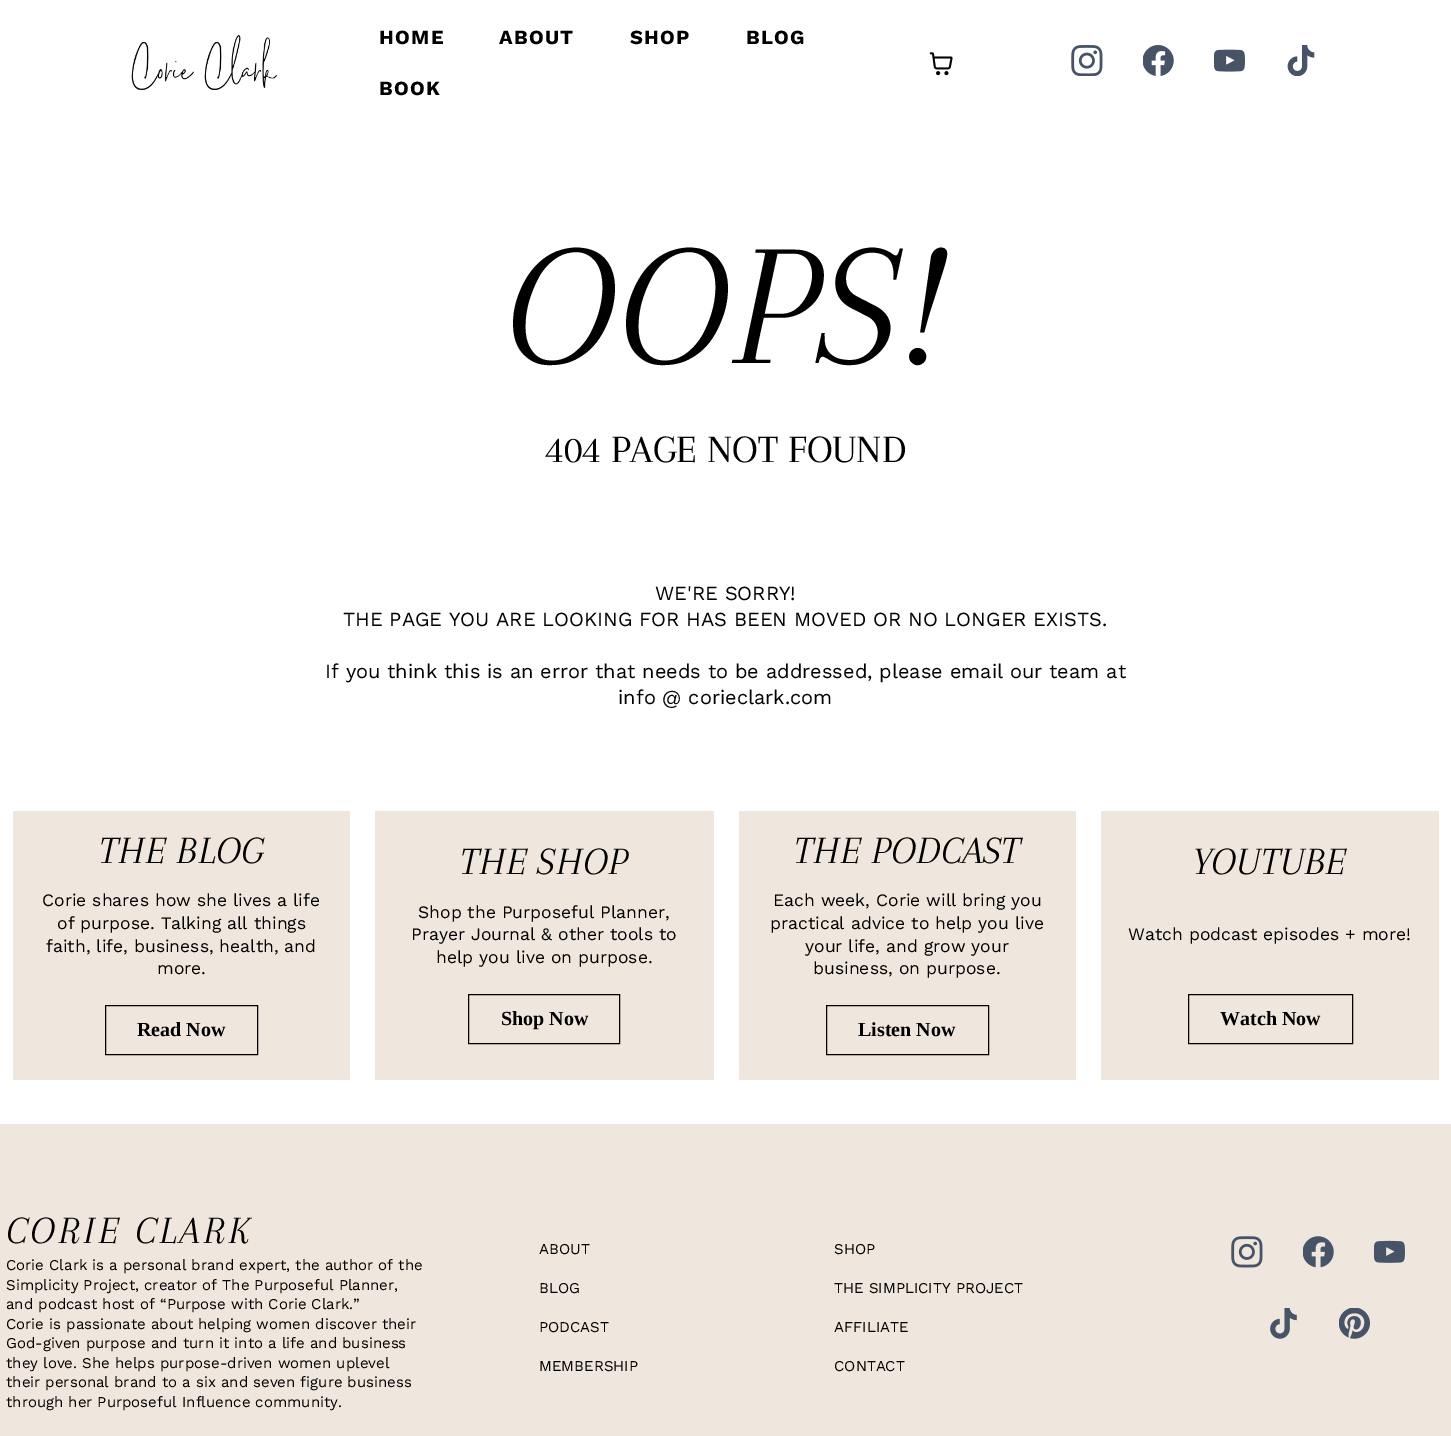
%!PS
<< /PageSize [1451 1436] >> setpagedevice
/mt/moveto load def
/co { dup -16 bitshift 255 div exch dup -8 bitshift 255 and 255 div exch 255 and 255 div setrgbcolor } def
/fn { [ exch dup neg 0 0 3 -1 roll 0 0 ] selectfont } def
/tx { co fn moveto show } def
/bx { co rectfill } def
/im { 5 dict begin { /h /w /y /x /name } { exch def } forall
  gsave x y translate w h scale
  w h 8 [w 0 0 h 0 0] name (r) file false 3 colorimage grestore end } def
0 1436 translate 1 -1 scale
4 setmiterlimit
0 0 1451 1436 16#FFFFFF bx
(media/1.raw) 131 35 147 55 im
(media/2.raw) 929 52 24 24 im
(media/3.raw) 1071 45 32 31 im
(media/4.raw) 1143 45 31 31 im
(media/5.raw) 1214 49 31 23 im
(media/6.raw) 1287 45 28 31 im
13 811 337 269 16#EFE7DD bx
16#000000 co
105.5 1005.5 152 49 rectstroke
375 811 339 269 16#EFE7DD bx
16#000000 co
468.5 994.5 151 49 rectstroke
739 811 337 269 16#EFE7DD bx
16#000000 co
826.5 1005.5 162 49 rectstroke
1101 811 338 269 16#EFE7DD bx
16#000000 co
1188.5 994.5 164 49 rectstroke
0 1124 1451 312 16#EFE7DD bx
(media/7.raw) 1231 1236 32 32 im
(media/8.raw) 1303 1236 31 32 im
(media/9.raw) 1374 1240 31 23 im
(media/10.raw) 1270 1308 27 31 im
(media/11.raw) 1339 1308 31 31 im
/WorkSans-Bold 20 fn
16#000000 co
379 44 mt 1.25 0 (HOME) ashow
499 44 mt 1.25 0 (ABOUT) ashow
630 44 mt 1.25 0 (SHOP) ashow
746 44 mt 1.25 0 (BLOG) ashow
379 95 mt 1.25 0 (BOOK) ashow
(OOPS!) 504 363 /Arapey-Italic 180 16#000000 tx
(404 PAGE NOT FOUND) 545 462 /Arapey-Regular 40 16#000000 tx
(WE'RE SORRY!) 655 600 /WorkSans-Regular 20 16#000000 tx
(THE PAGE YOU ARE LOOKING FOR HAS BEEN MOVED OR NO LONGER EXISTS.) 343 626 /WorkSans-Regular 20 16#000000 tx
(If you think this is an error that needs to be addressed, please email our team at) 325 678 /WorkSans-Regular 20 16#000000 tx
(info @ corieclark.com) 618 704 /WorkSans-Regular 20 16#000000 tx
(THE BLOG) 99 863 /Arapey-Italic 40 16#000000 tx
(Corie shares how she lives a life) 42 906 /WorkSans-Regular 17.5 16#000000 tx
(of purpose. Talking all things) 57 929 /WorkSans-Regular 17.5 16#000000 tx
(faith, life, business, health, and) 46 952 /WorkSans-Regular 17.5 16#000000 tx
(more.) 157 974 /WorkSans-Regular 17.5 16#000000 tx
(Read Now) 137 1036 /LiberationSerif-Bold 20 16#000000 tx
(THE SHOP) 460 874 /Arapey-Italic 40 16#000000 tx
(Shop the Purposeful Planner,) 418 918 /WorkSans-Regular 17.5 16#000000 tx
(Prayer Journal & other tools to) 411 940 /WorkSans-Regular 17.5 16#000000 tx
(help you live on purpose.) 436 963 /WorkSans-Regular 17.5 16#000000 tx
(Shop Now) 501 1025 /LiberationSerif-Bold 20 16#000000 tx
(THE PODCAST) 794 863 /Arapey-Italic 40 16#000000 tx
(Each week, Corie will bring you) 773 906 /WorkSans-Regular 17.5 16#000000 tx
(practical advice to help you live) 770 929 /WorkSans-Regular 17.5 16#000000 tx
(your life, and grow your) 805 952 /WorkSans-Regular 17.5 16#000000 tx
(business, on purpose.) 813 974 /WorkSans-Regular 17.5 16#000000 tx
(Listen Now) 858 1036 /LiberationSerif-Bold 20 16#000000 tx
(YOUTUBE) 1193 874 /Arapey-Italic 40 16#000000 tx
(Watch podcast episodes + more!) 1128 940 /WorkSans-Regular 17.5 16#000000 tx
(Watch Now) 1220 1025 /LiberationSerif-Bold 20 16#000000 tx
/Arapey-Italic 40 fn
6 1243 mt 2.5 0 (CORIE CLARK) ashow
(Corie Clark is a personal brand expert, the author of the) 6 1270 /WorkSans-Regular 15 16#000000 tx
(Simplicity Project, creator of The Purposeful Planner,) 6 1290 /WorkSans-Regular 15 16#000000 tx
(and podcast host of “Purpose with Corie Clark.”) 6 1309 /WorkSans-Regular 15 16#000000 tx
(Corie is passionate about helping women discover their) 6 1329 /WorkSans-Regular 15 16#000000 tx
(God-given purpose and turn it into a life and business) 6 1348 /WorkSans-Regular 15 16#000000 tx
(they love. She helps purpose-driven women uplevel) 6 1368 /WorkSans-Regular 15 16#000000 tx
(their personal brand to a six and seven figure business) 6 1387 /WorkSans-Regular 15 16#000000 tx
(through her Purposeful Influence community.) 6 1407 /WorkSans-Regular 15 16#000000 tx
(ABOUT) 539 1254 /WorkSans-Regular 15 16#000000 tx
(BLOG) 539 1293 /WorkSans-Regular 15 16#000000 tx
(PODCAST) 539 1332 /WorkSans-Regular 15 16#000000 tx
(MEMBERSHIP) 539 1371 /WorkSans-Regular 15 16#000000 tx
(SHOP) 834 1254 /WorkSans-Regular 15 16#000000 tx
(THE SIMPLICITY PROJECT) 834 1293 /WorkSans-Regular 15 16#000000 tx
(AFFILIATE) 834 1332 /WorkSans-Regular 15 16#000000 tx
(CONTACT) 834 1371 /WorkSans-Regular 15 16#000000 tx
showpage
